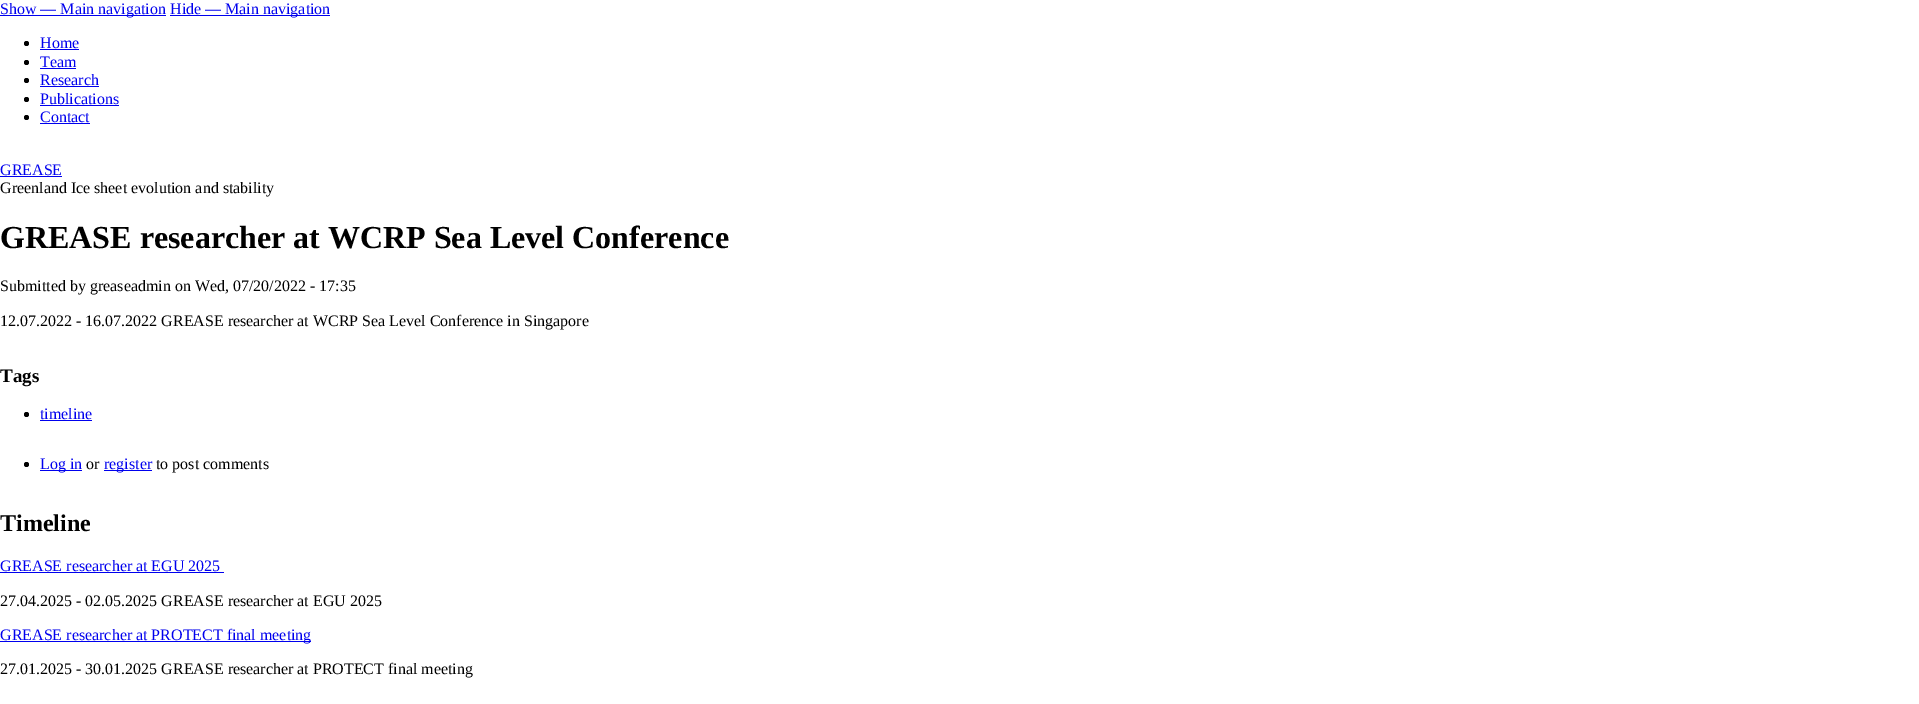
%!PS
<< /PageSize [1919 704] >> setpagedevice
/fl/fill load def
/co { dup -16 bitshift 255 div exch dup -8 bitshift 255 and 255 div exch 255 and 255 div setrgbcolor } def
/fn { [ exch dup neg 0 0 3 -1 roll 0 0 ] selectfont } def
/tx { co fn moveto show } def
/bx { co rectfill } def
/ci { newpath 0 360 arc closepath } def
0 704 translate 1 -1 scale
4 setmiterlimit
0 0 1919 704 16#FFFFFF bx
0 15 166 1 16#0000EE bx
170 15 160 1 16#0000EE bx
16#000000 co
26.5 43.5 2.5 ci fl
40 49 39 1 16#0000EE bx
16#000000 co
26.5 62.5 2.5 ci fl
40 68 36 1 16#0000EE bx
16#000000 co
26.5 80.5 2.5 ci fl
40 86 59 1 16#0000EE bx
16#000000 co
26.5 99.5 2.5 ci fl
40 105 79 1 16#0000EE bx
16#000000 co
26.5 117.5 2.5 ci fl
40 123 50 1 16#0000EE bx
0 176 62 1 16#0000EE bx
16#000000 co
26.5 414.5 2.5 ci fl
40 420 52 1 16#0000EE bx
16#000000 co
26.5 464.5 2.5 ci fl
40 470 42 1 16#0000EE bx
104 470 48 1 16#0000EE bx
0 572 224 1 16#0000EE bx
0 641 311 1 16#0000EE bx
(Show — Main navigation) 0 14 /LiberationSerif-Regular 16 16#0000EE tx
(Hide — Main navigation) 170 14 /LiberationSerif-Regular 16 16#0000EE tx
(Home) 40 48 /LiberationSerif-Regular 16 16#0000EE tx
(Team) 40 67 /LiberationSerif-Regular 16 16#0000EE tx
(Research) 40 85 /LiberationSerif-Regular 16 16#0000EE tx
(Publications) 40 104 /LiberationSerif-Regular 16 16#0000EE tx
(Contact) 40 122 /LiberationSerif-Regular 16 16#0000EE tx
(GREASE) 0 175 /LiberationSerif-Regular 16 16#0000EE tx
(Greenland Ice sheet evolution and stability) 0 193 /LiberationSerif-Regular 16 16#000000 tx
(GREASE researcher at WCRP Sea Level Conference) 0 248 /LiberationSerif-Bold 32 16#000000 tx
(Submitted by greaseadmin on Wed, 07/20/2022 - 17:35) 0 291 /LiberationSerif-Regular 16 16#000000 tx
(12.07.2022 - 16.07.2022 GREASE researcher at WCRP Sea Level Conference in Singapore) 0 326 /LiberationSerif-Regular 16 16#000000 tx
(Tags) 0 382 /LiberationSerif-Bold 19 16#000000 tx
(timeline) 40 419 /LiberationSerif-Regular 16 16#0000EE tx
(Log in) 40 469 /LiberationSerif-Regular 16 16#0000EE tx
(or) 86 469 /LiberationSerif-Regular 16 16#000000 tx
(register) 104 469 /LiberationSerif-Regular 16 16#0000EE tx
(to post comments) 156 469 /LiberationSerif-Regular 16 16#000000 tx
(Timeline) 0 531 /LiberationSerif-Bold 24 16#000000 tx
(GREASE researcher at EGU 2025) 0 571 /LiberationSerif-Regular 16 16#0000EE tx
(27.04.2025 - 02.05.2025 GREASE researcher at EGU 2025) 0 606 /LiberationSerif-Regular 16 16#000000 tx
(GREASE researcher at PROTECT final meeting) 0 640 /LiberationSerif-Regular 16 16#0000EE tx
(27.01.2025 - 30.01.2025 GREASE researcher at PROTECT final meeting) 0 674 /LiberationSerif-Regular 16 16#000000 tx
showpage
